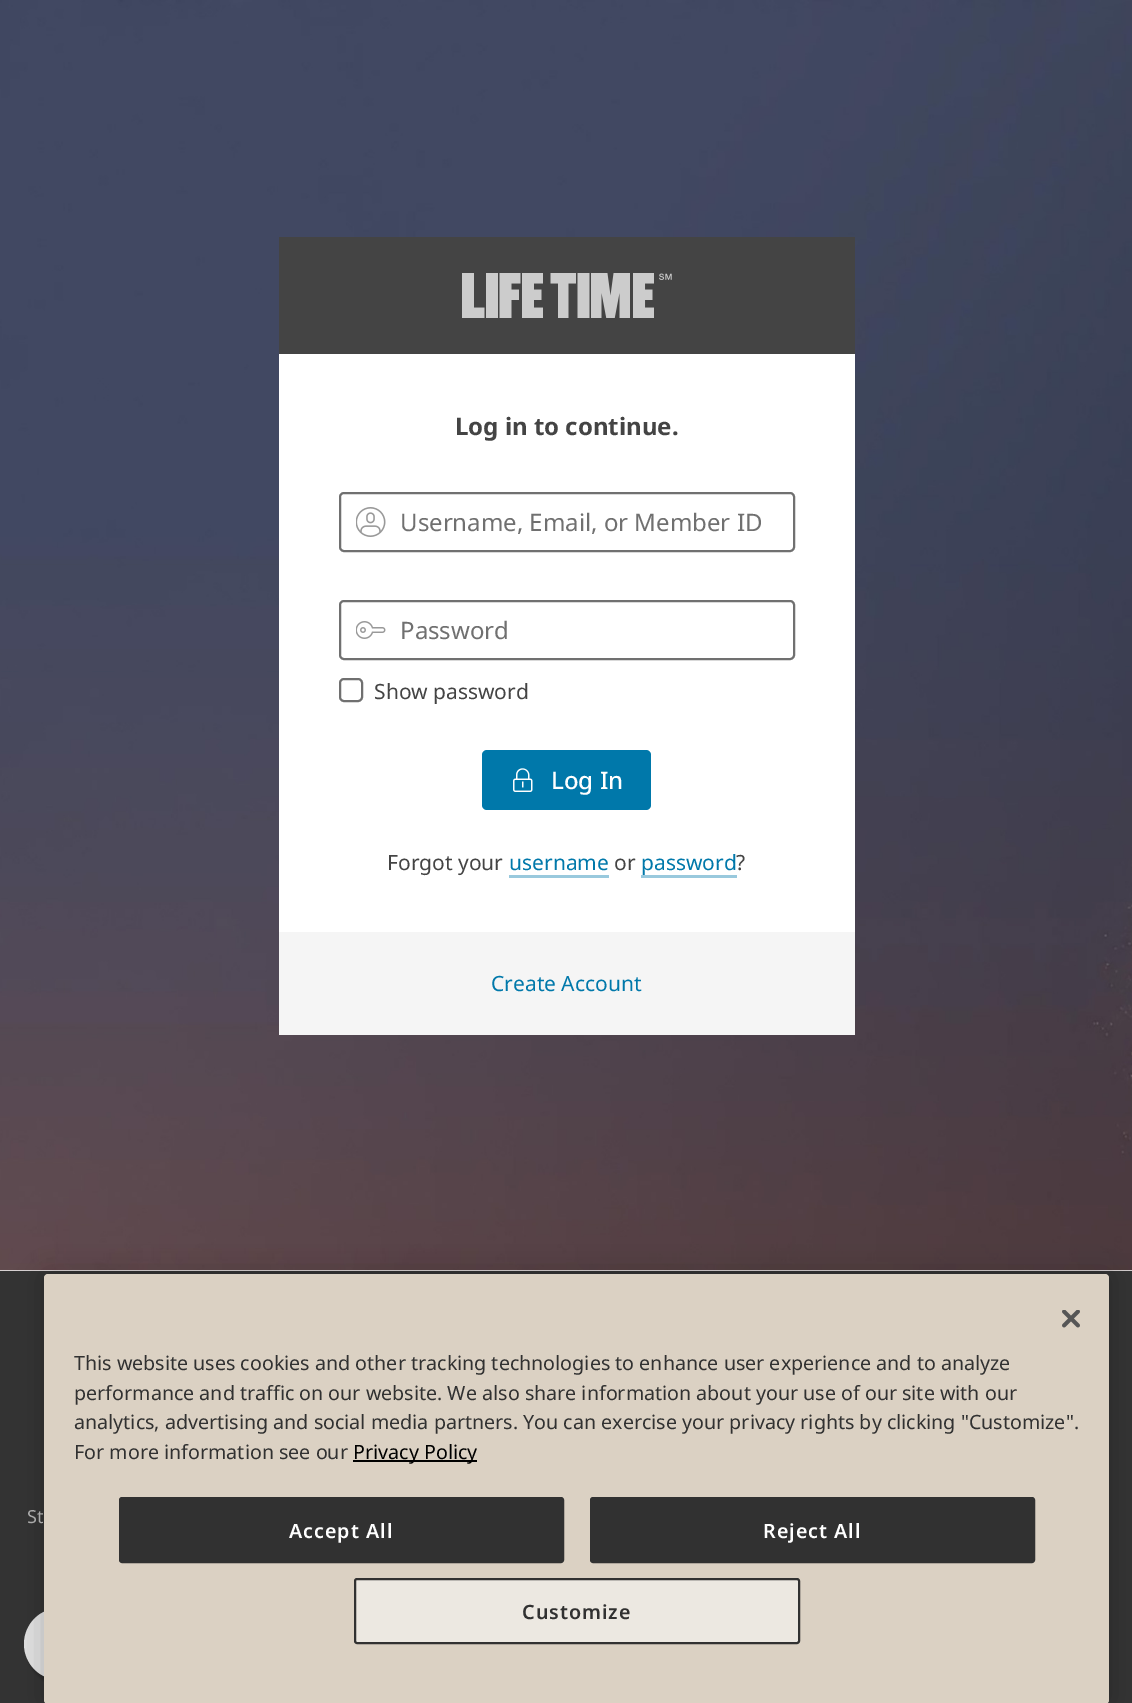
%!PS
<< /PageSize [1132 1703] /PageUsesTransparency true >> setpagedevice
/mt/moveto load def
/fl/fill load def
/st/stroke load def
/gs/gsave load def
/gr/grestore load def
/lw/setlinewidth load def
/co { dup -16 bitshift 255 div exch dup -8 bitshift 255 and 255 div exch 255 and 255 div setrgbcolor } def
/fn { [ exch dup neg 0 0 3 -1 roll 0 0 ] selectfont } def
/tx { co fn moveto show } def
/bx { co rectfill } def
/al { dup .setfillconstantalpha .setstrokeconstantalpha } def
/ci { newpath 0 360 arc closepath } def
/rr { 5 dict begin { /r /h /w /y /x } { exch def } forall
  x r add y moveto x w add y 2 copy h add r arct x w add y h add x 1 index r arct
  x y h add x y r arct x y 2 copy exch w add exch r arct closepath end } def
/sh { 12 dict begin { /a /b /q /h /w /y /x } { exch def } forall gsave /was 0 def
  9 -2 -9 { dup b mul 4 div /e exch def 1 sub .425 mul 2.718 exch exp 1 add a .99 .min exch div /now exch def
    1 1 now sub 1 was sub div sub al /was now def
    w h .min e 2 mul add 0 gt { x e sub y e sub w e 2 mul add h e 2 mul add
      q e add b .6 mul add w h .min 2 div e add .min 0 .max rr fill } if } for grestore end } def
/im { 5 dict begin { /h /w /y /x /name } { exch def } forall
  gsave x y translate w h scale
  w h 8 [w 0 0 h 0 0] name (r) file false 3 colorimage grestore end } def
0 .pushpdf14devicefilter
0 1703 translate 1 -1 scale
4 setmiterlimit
0 0 1132 1703 16#FFFFFF bx
(media/1.raw) 0 0 1132 1271 im
279 354 576 578 16#FFFFFF bx
279 237 576 117 16#444444 bx
(media/2.raw) 462 273 210 45 im
(media/3.raw) 356 507 30 30 im
16#707070 co
2 lw
340 493 454 58 4 rr st
(media/4.raw) 356 621 30 18 im
340 601 454 58 4 rr st
340 679 22 22 4 rr st
16#0078AA co
482 750 169 60 5 rr fl
(media/5.raw) 513 768 20 24 im
509 875 100 3 16#99C9DD bx
641 875 96 3 16#99C9DD bx
279 932 576 103 16#F5F5F5 bx
0 1271 1132 432 16#333333 bx
16#000000 co
27 1614 72 72 36 1.5 .2 sh
16#E0E0E0 co
60 1644 36 ci fl
16#000000 co
44 1274 1065 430 4 13.5 .2 sh
16#DBD1C3 co
44 1274 1065 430 4 rr fl
(media/6.raw) 1062 1310 18 18 im
353 1460 124 2 16#000000 bx
16#313131 co
120 1498 443 64 2 rr gs fl gr
st
591 1498 443 64 2 rr gs fl gr
st
16#ECE8E1 co
355 1579 444 64 2 rr gs fl gr
16#313131 co
st
(Log in to continue.) 455 435 /NotoSans-Bold 24 16#444444 tx
(Username, Email, or Member ID) 400 531 /NotoSans-Regular 24 16#707070 tx
(Password) 400 639 /NotoSans-Regular 24 16#707070 tx
(Show password) 374 699 /NotoSans-Regular 21 16#444444 tx
(Log In) 551 789 /NotoSans-Medium 24 16#FFFFFF tx
(Forgot your) 387 870 /NotoSans-Regular 21 16#444444 tx
(username) 509 870 /NotoSans-Regular 21 16#0078AA tx
(or) 614 870 /NotoSans-Regular 21 16#444444 tx
(password) 641 870 /NotoSans-Regular 21 16#0078AA tx
(?) 736 870 /NotoSans-Regular 21 16#444444 tx
(Create Account) 491 991 /NotoSans-Regular 21 16#0078AA tx
(St) 27 1523 /NotoSans-Regular 18 16#AAAAAA tx
(This website uses cookies and other tracking technologies to enhance user experience and to analyze) 74 1370 /NotoSans-Regular 19.68 16#313131 tx
(performance and traffic on our website. We also share information about your use of our site with our) 74 1400 /NotoSans-Regular 19.68 16#313131 tx
(analytics, advertising and social media partners. You can exercise your privacy rights by clicking "Customize".) 74 1429 /NotoSans-Regular 19.68 16#313131 tx
(For more information see our) 74 1459 /NotoSans-Regular 19.68 16#313131 tx
(Privacy Policy) 353 1459 /NotoSans-Regular 19.68 16#000000 tx
/NotoSans-SemiBold 19.68 fn
16#FFFFFF co
289 1538 mt 1 0 (Accept All) ashow
763 1538 mt 1 0 (Reject All) ashow
16#313131 co
522 1619 mt 1 0 (Customize) ashow
.poppdf14devicefilter showpage
